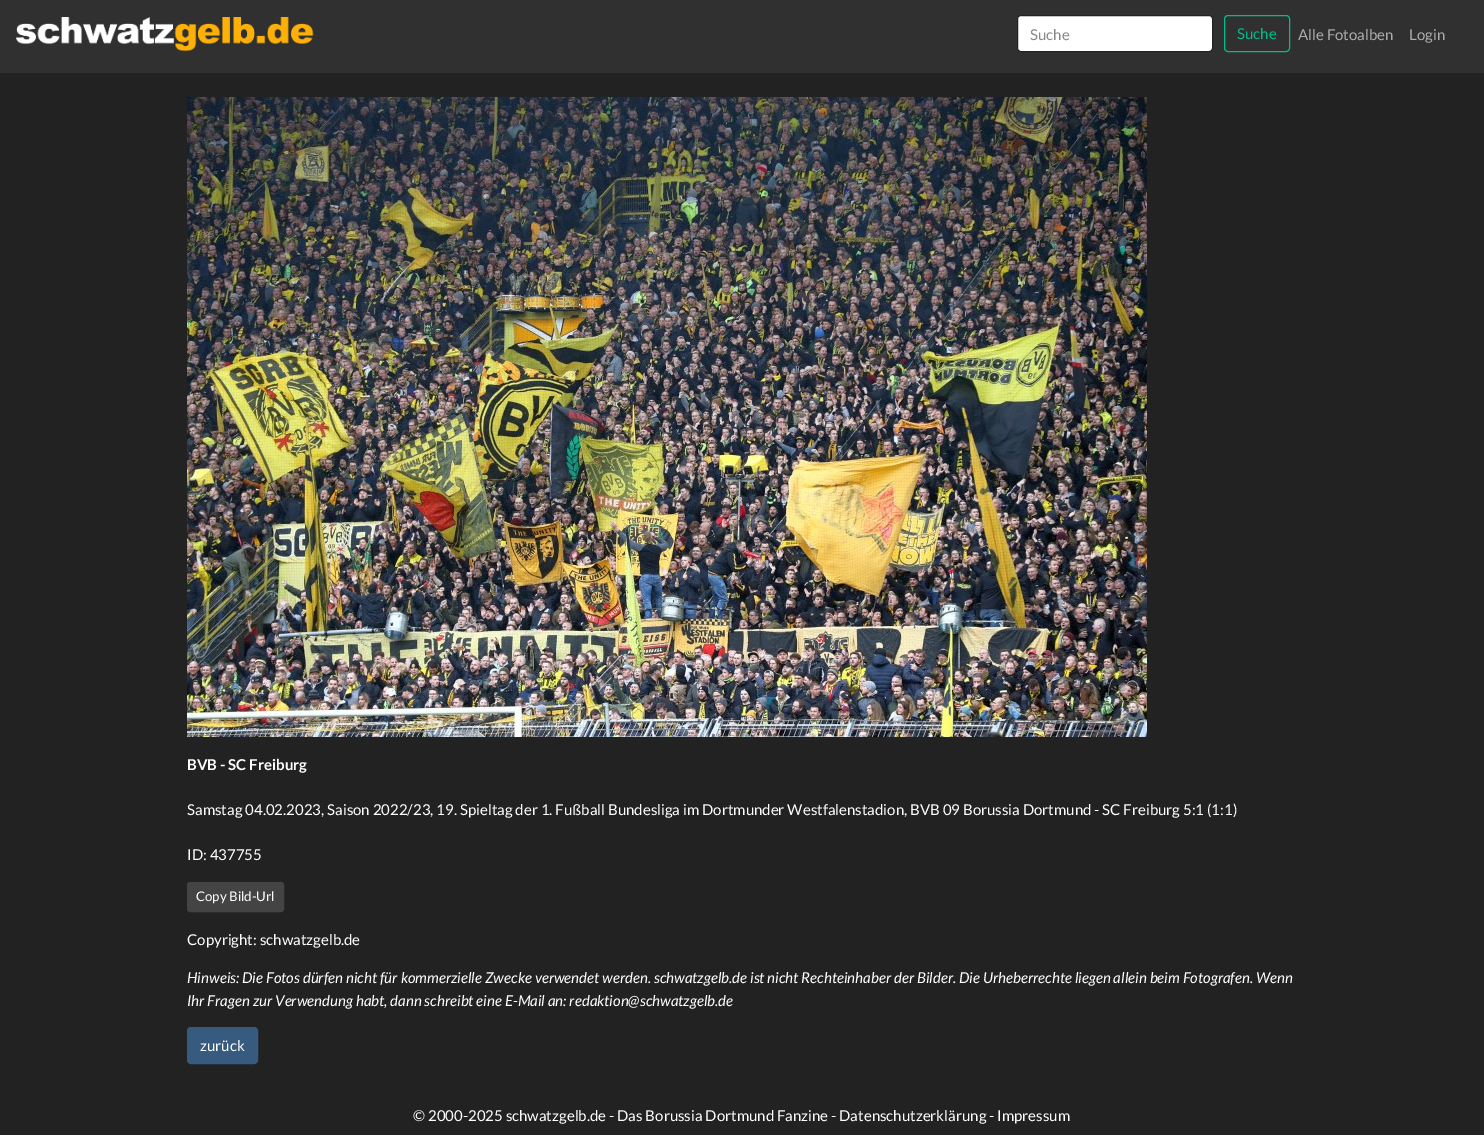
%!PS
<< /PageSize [1484 1135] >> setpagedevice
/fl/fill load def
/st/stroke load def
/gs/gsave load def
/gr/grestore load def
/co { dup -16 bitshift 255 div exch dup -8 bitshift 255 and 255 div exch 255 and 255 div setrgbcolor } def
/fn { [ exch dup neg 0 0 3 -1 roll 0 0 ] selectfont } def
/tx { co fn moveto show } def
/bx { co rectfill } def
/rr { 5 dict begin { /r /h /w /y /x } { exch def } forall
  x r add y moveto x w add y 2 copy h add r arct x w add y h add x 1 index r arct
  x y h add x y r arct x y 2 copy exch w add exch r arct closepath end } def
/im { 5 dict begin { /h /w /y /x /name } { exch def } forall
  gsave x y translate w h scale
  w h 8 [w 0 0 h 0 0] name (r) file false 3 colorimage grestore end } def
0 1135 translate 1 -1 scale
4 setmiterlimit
0 0 1484 1135 16#222222 bx
0 0 1484 73 16#303030 bx
(media/1.raw) 16 17 298 35 im
16#FFFFFF co
1017.5 15.5 195 36 3.5 rr gs fl gr
16#222222 co
st
16#00BC8C co
1224.5 15.5 65 36 3.5 rr st
(media/2.raw) 187 97 960 640 im
16#444444 co
187.5 882.5 96 29 2.5 rr gs fl gr
st
16#375A7F co
187.5 1027.5 70 36 3.5 rr gs fl gr
st
(Suche) 1030 40 /Lato-Regular 15 16#888888 tx
(Suche) 1237 39 /Lato-Regular 15 16#00BC8C tx
(Alle Fotoalben) 1298 40 /Lato-Regular 15 16#ACACAC tx
(Login) 1409 40 /Lato-Regular 15 16#ACACAC tx
(BVB - SC Freiburg) 187 770 /Lato-Bold 15 16#FFFFFF tx
(Samstag 04.02.2023, Saison 2022/23, 19. Spieltag der 1. Fußball Bundesliga im Dortmunder Westfalenstadion, BVB 09 Borussia Dortmund - SC Freiburg 5:1 \(1:1\)) 187 815 /Lato-Regular 15 16#FFFFFF tx
(ID: 437755) 187 860 /Lato-Regular 15 16#FFFFFF tx
(Copy Bild-Url) 196 901 /Lato-Regular 13.25 16#FFFFFF tx
(Copyright: schwatzgelb.de) 187 945 /Lato-Regular 15 16#FFFFFF tx
(Hinweis: Die Fotos dürfen nicht für kommerzielle Zwecke verwendet werden. schwatzgelb.de ist nicht Rechteinhaber der Bilder. Die Urheberrechte liegen allein beim Fotografen. Wenn) 187 983 /Lato-Italic 15 16#FFFFFF tx
(Ihr Fragen zur Verwendung habt, dann schreibt eine E-Mail an: redaktion@schwatzgelb.de) 187 1006 /Lato-Italic 15 16#FFFFFF tx
(zurück) 200 1051 /Lato-Regular 15 16#FFFFFF tx
(© 2000-2025 schwatzgelb.de - Das Borussia Dortmund Fanzine - Datenschutzerklärung - Impressum) 413 1121 /Lato-Regular 15 16#FFFFFF tx
showpage
